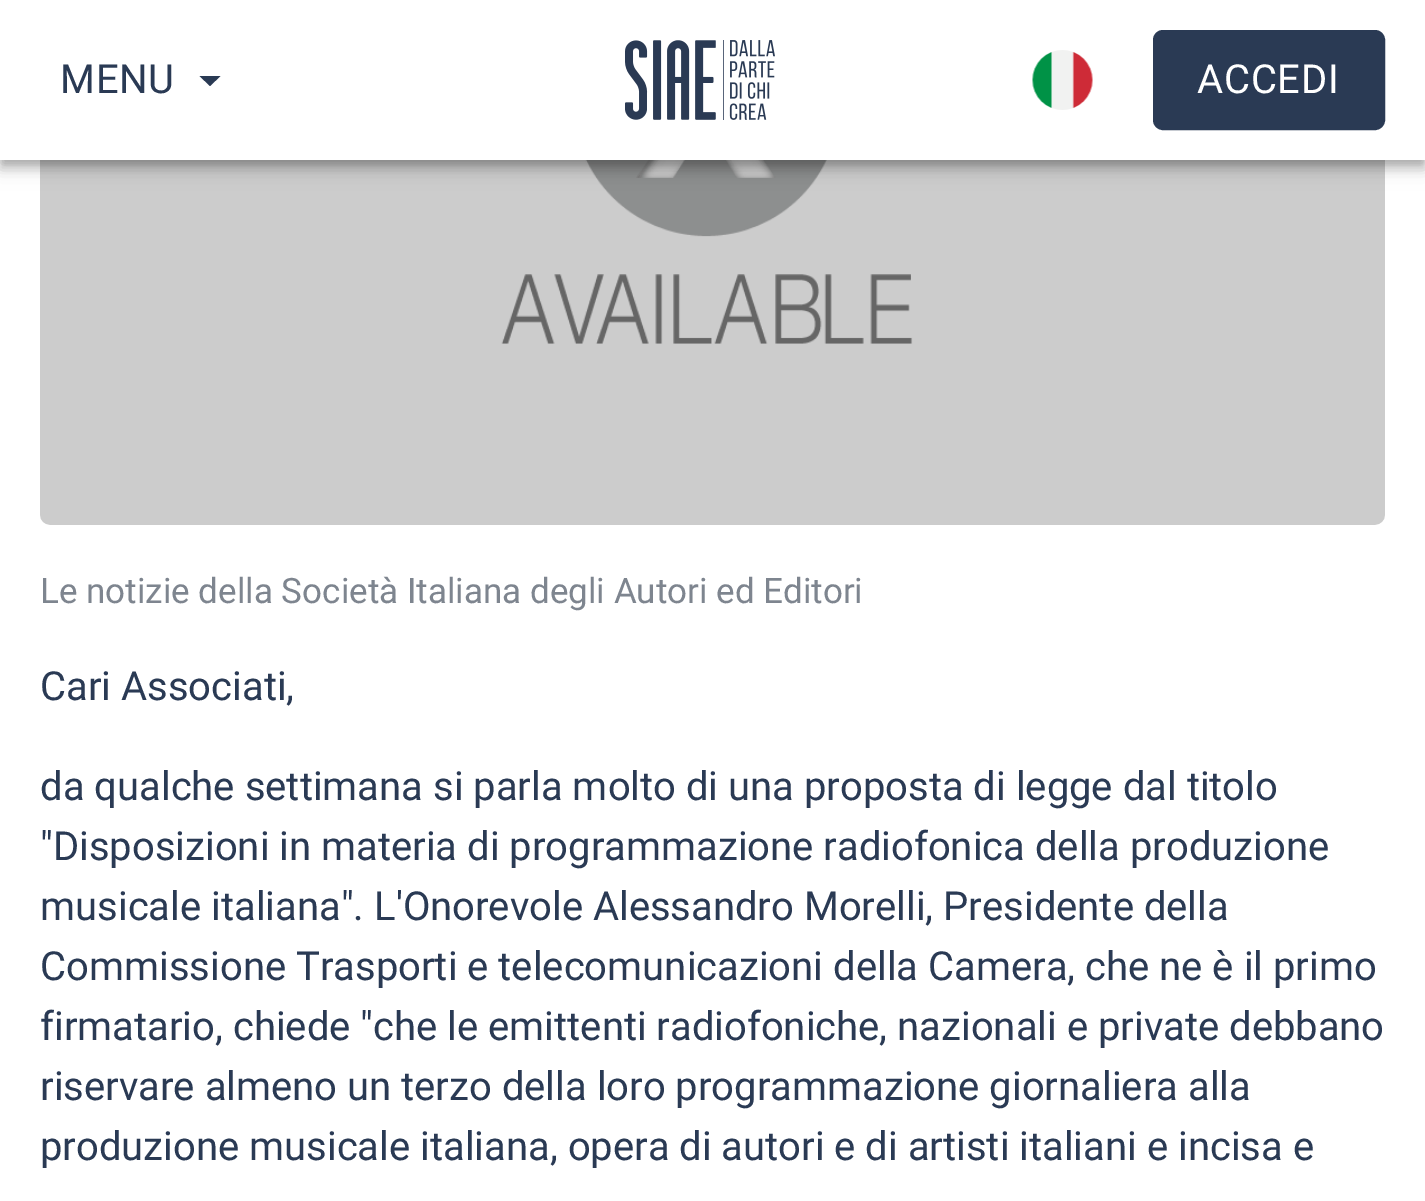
%!PS
<< /PageSize [1425 1201] /PageUsesTransparency true >> setpagedevice
/mt/moveto load def
/li/lineto load def
/cp/closepath load def
/fl/fill load def
/st/stroke load def
/gs/gsave load def
/gr/grestore load def
/lw/setlinewidth load def
/co { dup -16 bitshift 255 div exch dup -8 bitshift 255 and 255 div exch 255 and 255 div setrgbcolor } def
/fn { [ exch dup neg 0 0 3 -1 roll 0 0 ] selectfont } def
/tx { co fn moveto show } def
/bx { co rectfill } def
/al { dup .setfillconstantalpha .setstrokeconstantalpha } def
/rr { 5 dict begin { /r /h /w /y /x } { exch def } forall
  x r add y moveto x w add y 2 copy h add r arct x w add y h add x 1 index r arct
  x y h add x y r arct x y 2 copy exch w add exch r arct closepath end } def
/sh { 12 dict begin { /a /b /q /h /w /y /x } { exch def } forall gsave /was 0 def
  9 -2 -9 { dup b mul 4 div /e exch def 1 sub .425 mul 2.718 exch exp 1 add a .99 .min exch div /now exch def
    1 1 now sub 1 was sub div sub al /was now def
    w h .min e 2 mul add 0 gt { x e sub y e sub w e 2 mul add h e 2 mul add
      q e add b .6 mul add w h .min 2 div e add .min 0 .max rr fill } if } for grestore end } def
/im { 5 dict begin { /h /w /y /x /name } { exch def } forall
  gsave x y translate w h scale
  w h 8 [w 0 0 h 0 0] name (r) file false 3 colorimage grestore end } def
0 .pushpdf14devicefilter
0 1201 translate 1 -1 scale
4 setmiterlimit
0 0 1425 1201 16#FFFFFF bx
(media/3.raw) 40 160 1345 365 im
16#000000 co
0 3 1425 160 0 12.5 .12 sh
0 10 1425 160 0 6 .14 sh
3 8 1420 155 0 5 .2 sh
0 0 1425 160 16#FFFFFF bx
16#2A3A54 co
199.5 76 mt 210 86 li 220.5 76 li cp fl
(media/1.raw) 625 40 150 80 im
(media/2.raw) 1032 50 61 60 im
1155.5 32.5 227 95 7.5 rr gs fl gr
5 lw
st
/Roboto-Regular 40 fn
60 93 mt .75 0 (MENU) ashow
16#FFFFFF co
1197 93 mt .75 0 (ACCEDI) ashow
(Le notizie della Società Italiana degli Autori ed Editori) 40 603 /Roboto-Regular 35 16#7E858F tx
(Cari Associati,) 40 700 /Roboto-Regular 40 16#2A3A54 tx
(da qualche settimana si parla molto di una proposta di legge dal titolo) 40 800 /Roboto-Regular 40 16#2A3A54 tx
("Disposizioni in materia di programmazione radiofonica della produzione) 40 860 /Roboto-Regular 40 16#2A3A54 tx
(musicale italiana". L'Onorevole Alessandro Morelli, Presidente della) 40 920 /Roboto-Regular 40 16#2A3A54 tx
(Commissione Trasporti e telecomunicazioni della Camera, che ne è il primo) 40 980 /Roboto-Regular 40 16#2A3A54 tx
(firmatario, chiede "che le emittenti radiofoniche, nazionali e private debbano) 40 1040 /Roboto-Regular 40 16#2A3A54 tx
(riservare almeno un terzo della loro programmazione giornaliera alla) 40 1100 /Roboto-Regular 40 16#2A3A54 tx
(produzione musicale italiana, opera di autori e di artisti italiani e incisa e) 40 1160 /Roboto-Regular 40 16#2A3A54 tx
.poppdf14devicefilter showpage
